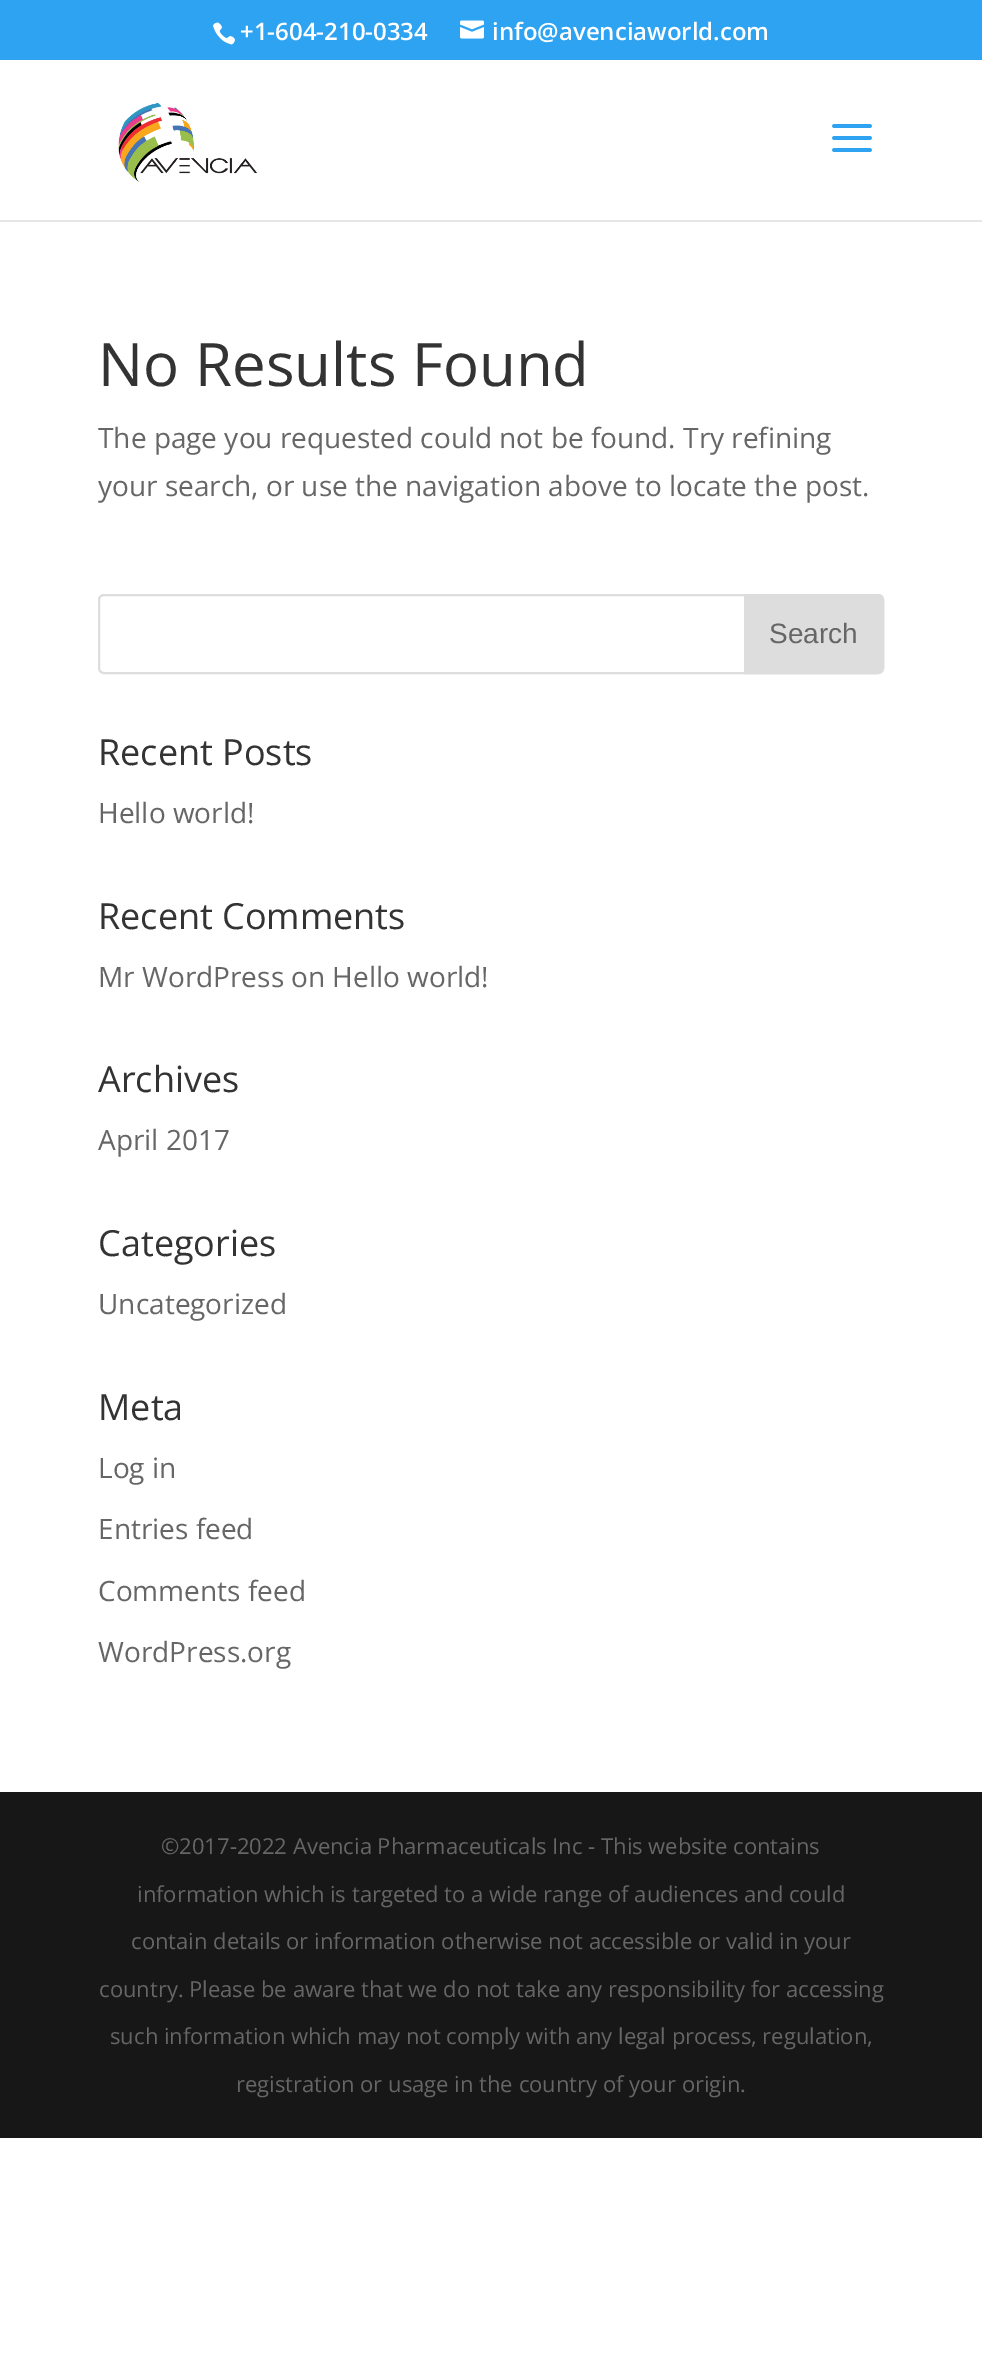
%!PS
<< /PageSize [982 2378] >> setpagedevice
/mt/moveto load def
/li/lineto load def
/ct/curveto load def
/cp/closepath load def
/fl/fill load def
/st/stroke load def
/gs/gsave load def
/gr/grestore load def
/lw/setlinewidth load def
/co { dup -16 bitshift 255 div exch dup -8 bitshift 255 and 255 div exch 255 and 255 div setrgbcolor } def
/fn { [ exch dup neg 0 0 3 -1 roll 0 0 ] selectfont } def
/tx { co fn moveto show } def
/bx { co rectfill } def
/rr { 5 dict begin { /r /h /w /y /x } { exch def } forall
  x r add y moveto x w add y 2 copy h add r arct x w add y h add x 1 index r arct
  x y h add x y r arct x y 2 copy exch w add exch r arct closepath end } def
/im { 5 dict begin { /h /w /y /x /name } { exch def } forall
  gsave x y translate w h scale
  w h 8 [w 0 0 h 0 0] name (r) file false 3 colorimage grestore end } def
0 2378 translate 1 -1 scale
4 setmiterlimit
0 0 982 2378 16#FFFFFF bx
0 0 982 60 16#2EA3F2 bx
(media/1.raw) 213 22 22 23 im
(media/2.raw) 460 20 24 19 im
0 220 982 2 16#E6E6E6 bx
(media/3.raw) 118 103 140 79 im
(media/4.raw) 832 124 40 28 im
16#DDDDDD co
2 lw
99 595 784 78 5 rr st
745 595 mt 878 595 li 881 595 883 597 883 600 ct 883 668 li 883 671 881 673 878 673 ct 745 673 li cp gs fl gr
st
0 1792 982 346 16#171717 bx
(+1-604-210-0334) 240 40 /OpenSans-SemiBold 24 16#FFFFFF tx
(info@avenciaworld.com) 492 40 /OpenSans-SemiBold 24 16#FFFFFF tx
(No Results Found) 98 386 /OpenSans-Regular 60 16#333333 tx
(The page you requested could not be found. Try refining) 98 448 /OpenSans-Regular 28 16#666666 tx
(your search, or use the navigation above to locate the post.) 98 496 /OpenSans-Regular 28 16#666666 tx
(Search) 769 643 /LiberationSans-Regular 28 16#666666 tx
(Recent Posts) 98 765 /OpenSans-Regular 36 16#333333 tx
(Hello world!) 98 823 /OpenSans-Regular 28 16#666666 tx
(Recent Comments) 98 929 /OpenSans-Regular 36 16#333333 tx
(Mr WordPress on Hello world!) 98 987 /OpenSans-Regular 28 16#666666 tx
(Archives) 98 1092 /OpenSans-Regular 36 16#333333 tx
(April 2017) 98 1150 /OpenSans-Regular 28 16#666666 tx
(Categories) 98 1256 /OpenSans-Regular 36 16#333333 tx
(Uncategorized) 98 1314 /OpenSans-Regular 28 16#666666 tx
(Meta) 98 1420 /OpenSans-Regular 36 16#333333 tx
(Log in) 98 1478 /OpenSans-Regular 28 16#666666 tx
(Entries feed) 98 1539 /OpenSans-Regular 28 16#666666 tx
(Comments feed) 98 1601 /OpenSans-Regular 28 16#666666 tx
(WordPress.org) 98 1662 /OpenSans-Regular 28 16#666666 tx
(©2017-2022 Avencia Pharmaceuticals Inc - This website contains) 161 1854 /OpenSans-Regular 22 16#666666 tx
(information which is targeted to a wide range of audiences and could) 137 1902 /OpenSans-Regular 22 16#666666 tx
(contain details or information otherwise not accessible or valid in your) 131 1949 /OpenSans-Regular 22 16#666666 tx
(country. Please be aware that we do not take any responsibility for accessing) 99 1997 /OpenSans-Regular 22 16#666666 tx
(such information which may not comply with any legal process, regulation,) 110 2044 /OpenSans-Regular 22 16#666666 tx
(registration or usage in the country of your origin.) 236 2092 /OpenSans-Regular 22 16#666666 tx
showpage
